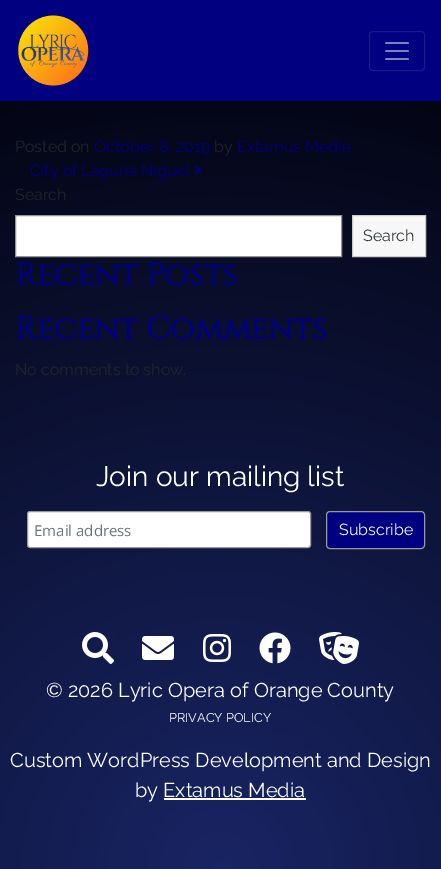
%!PS
<< /PageSize [441 869] >> setpagedevice
/mt/moveto load def
/li/lineto load def
/cp/closepath load def
/fl/fill load def
/st/stroke load def
/gs/gsave load def
/gr/grestore load def
/co { dup -16 bitshift 255 div exch dup -8 bitshift 255 and 255 div exch 255 and 255 div setrgbcolor } def
/fn { [ exch dup neg 0 0 3 -1 roll 0 0 ] selectfont } def
/tx { co fn moveto show } def
/bx { co rectfill } def
/rr { 5 dict begin { /r /h /w /y /x } { exch def } forall
  x r add y moveto x w add y 2 copy h add r arct x w add y h add x 1 index r arct
  x y h add x y r arct x y 2 copy exch w add exch r arct closepath end } def
/im { 5 dict begin { /h /w /y /x /name } { exch def } forall
  gsave x y translate w h scale
  w h 8 [w 0 0 h 0 0] name (r) file false 3 colorimage grestore end } def
0 869 translate 1 -1 scale
4 setmiterlimit
0 0 441 869 16#FFFFFF bx
0 0 441 101 16#000080 bx
(media/1.raw) 18 15 71 71 im
16#1A1A8D co
369.5 31.5 55 39 3.5 rr st
(media/2.raw) 385 42 24 18 im
gs 0 101 mt 441 101 li 441 869 li 0 869 li cp clip newpath 221 869 translate 897 897 scale
<< /ShadingType 3 /ColorSpace /DeviceRGB /Coords [0 0 0 0 0 1] /Extend [true true] /Function << /FunctionType 2 /Domain [0 1] /C0 [.098 .145 .392] /C1 [.004 .004 .043] /N 1 >> >> shfill gr
(media/3.raw) 194 165 8 10 im
16#FFFFFF co
15.5 215.5 mt 341.5 215.5 li 341.5 256.5 li 15.5 256.5 li cp gs fl gr
16#949494 co
st
16#F7F7F7 co
352.5 215.5 mt 425.5 215.5 li 425.5 256.5 li 352.5 256.5 li cp gs fl gr
16#CCCCCC co
st
16#FFFFFF co
27.5 511.5 283 36 2.5 rr gs fl gr
16#999999 co
st
16#000080 co
326.5 511.5 98 37 3.5 rr gs fl gr
16#999999 co
st
(media/4.raw) 82 632 32 32 im
(media/5.raw) 142 636 32 24 im
(media/6.raw) 203 634 28 28 im
(media/7.raw) 259 632 32 32 im
(media/8.raw) 319 632 40 32 im
164 798 142 2 16#FFFFFF bx
(Posted on) 15 152 /Raleway-Regular 16 16#212529 tx
(October 8, 2019) 94 152 /Raleway-Regular 16 16#000080 tx
(by) 214 152 /Raleway-Regular 16 16#212529 tx
(Extamus Media) 237 152 /Raleway-Regular 16 16#000080 tx
(City of Laguna Niguel) 30 176 /Raleway-Regular 16 16#000080 tx
(Search) 15 200 /Raleway-Regular 16 16#212529 tx
(Search) 363 241 /Raleway-Regular 16 16#32373C tx
(Recent Posts) 15 285 /Cinzel-Bold 32 16#000080 tx
(Recent Comments) 15 339 /Cinzel-Bold 32 16#000080 tx
(No comments to show.) 15 375 /Raleway-Regular 16 16#212529 tx
(Join our mailing list) 96 486 /Raleway-Regular 28 16#FFFFFF tx
(Email address) 34 536 /OpenSans-Regular 15 16#6C757D tx
(Subscribe) 339 535 /Raleway-Regular 16 16#F8F9FA tx
(© 2026 Lyric Opera of Orange County) 46 697 /Raleway-Regular 20 16#FFFFFF tx
(PRIVACY POLICY) 169 722 /Raleway-Regular 12.75 16#FFFFFF tx
(Custom WordPress Development and Design) 10 767 /Raleway-Regular 20 16#FFFFFF tx
(by Extamus Media) 135 797 /Raleway-Regular 20 16#FFFFFF tx
showpage
